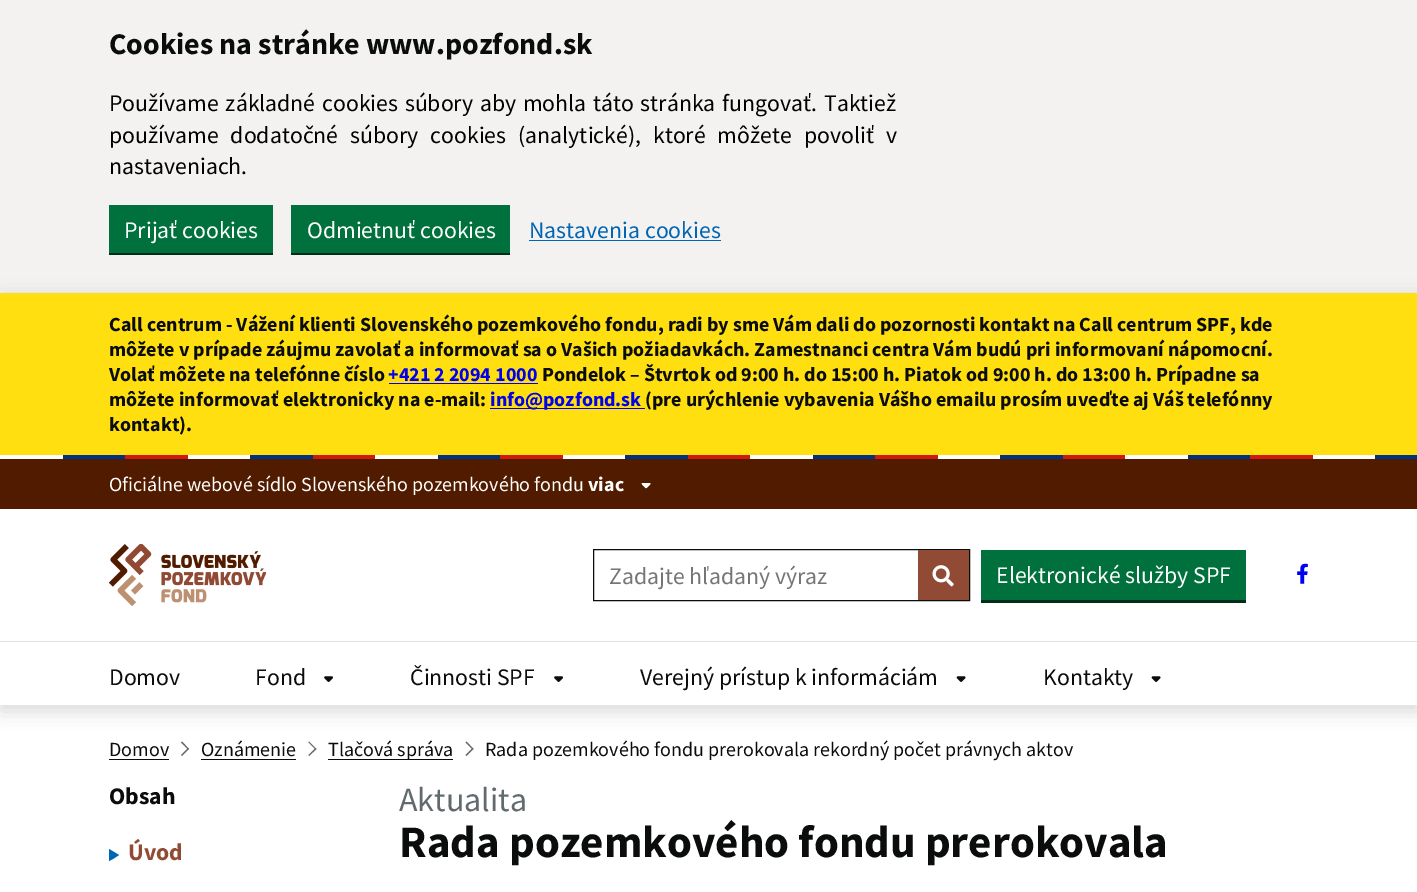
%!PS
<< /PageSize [1417 892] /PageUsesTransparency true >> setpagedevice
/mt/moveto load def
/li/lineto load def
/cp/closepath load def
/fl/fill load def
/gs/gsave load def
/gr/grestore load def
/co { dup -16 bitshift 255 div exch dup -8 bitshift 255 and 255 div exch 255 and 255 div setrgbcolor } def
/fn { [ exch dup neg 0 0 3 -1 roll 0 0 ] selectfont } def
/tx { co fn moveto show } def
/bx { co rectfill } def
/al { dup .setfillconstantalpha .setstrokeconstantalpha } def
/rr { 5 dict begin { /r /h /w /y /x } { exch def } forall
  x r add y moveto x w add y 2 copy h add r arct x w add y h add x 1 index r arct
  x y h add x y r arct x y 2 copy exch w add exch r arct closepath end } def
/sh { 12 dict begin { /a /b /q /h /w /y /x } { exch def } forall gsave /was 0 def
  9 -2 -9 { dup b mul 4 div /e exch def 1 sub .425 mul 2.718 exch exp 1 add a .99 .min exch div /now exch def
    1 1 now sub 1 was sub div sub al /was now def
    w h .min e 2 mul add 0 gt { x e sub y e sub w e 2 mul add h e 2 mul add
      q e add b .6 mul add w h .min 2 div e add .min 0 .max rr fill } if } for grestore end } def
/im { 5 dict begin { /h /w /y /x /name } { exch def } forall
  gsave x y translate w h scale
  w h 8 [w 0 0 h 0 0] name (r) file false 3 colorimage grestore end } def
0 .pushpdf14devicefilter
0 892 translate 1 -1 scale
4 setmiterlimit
0 0 1417 892 16#FFFFFF bx
0 0 1417 293 16#F3F2F1 bx
16#002D18 co
109 252 mt 109 255 li 273 255 li 273 208 li 272 208 li 272 252 li cp fl
109 205 164 48 16#00703C bx
16#002D18 co
291 208 mt 291 255 li 510 255 li 510 252 li 291 252 li cp fl
291 205 219 48 16#00703C bx
529 240 192 1 16#0065B3 bx
gs
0 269 mt 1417 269 li 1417 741 li 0 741 li cp 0 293 mt 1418 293 li 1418 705 li 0 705 li cp eoclip newpath
16#000000 co
0 299 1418 412 0 9.5 .15 sh
gr
0 293 1417 162 16#FFDF0F bx
389 383 149 1 16#0000EE bx
490 408 155 1 16#0000EE bx
(media/1.raw) 63 455 1354 4 im
0 459 1417 50 16#511B00 bx
(media/2.raw) 641 483 10 6 im
(media/3.raw) 109 544 157 62 im
16#0B0C0C co
593.5 549.5 376 51 rectstroke
918 550 51 50 16#914A34 bx
(media/4.raw) 932 565 22 22 im
16#002D18 co
981 553 mt 981 603 li 1246 603 li 1246 600 li 981 600 li cp fl
981 550 265 50 16#00703C bx
(media/5.raw) 1297 563 11 21 im
0 641 1417 1 16#DEE0E2 bx
(media/6.raw) 324 676 9 6 im
(media/6.raw) 554 676 9 6 im
(media/7.raw) 956 676 10 6 im
(media/7.raw) 1151 676 10 6 im
109 759 60 1 16#0B0C0C bx
16#626A6E co
182 741.5 mt 189 749 li 188 749.5 li 181 742.5 li cp fl
188 748 mt 189 749 li 182 756 li 181 755 li cp fl
201 759 95 1 16#0B0C0C bx
16#626A6E co
309 741.5 mt 316.5 749 li 315.5 749.5 li 308.5 742.5 li cp fl
315.5 748 mt 316.5 749 li 309 756 li 308.5 755 li cp fl
328 759 125 1 16#0B0C0C bx
16#626A6E co
466.5 741.5 mt 473.5 749 li 472.5 749.5 li 465.5 742.5 li cp fl
472.5 748 mt 473.5 749 li 466.5 756 li 465.5 755 li cp fl
16#0065B3 co
109 861 mt 109 849 li 119 855 li 113 859 li cp fl
(Cookies na stránke www.pozfond.sk) 109 54 /SourceSansPro-Bold 30 16#0B0C0C tx
/SourceSansPro-Regular 23.75 fn
16#000000 co
109 111 mt 2 0 32 (Používame základné cookies súbory aby mohla táto stránka fungovať.) widthshow
(Taktiež) 824 111 /SourceSansPro-Regular 23.75 16#000000 tx
109 143 mt 7.25 0 32 (používame dodatočné súbory cookies \(analytické\), ktoré môžete povoliť v) widthshow
(nastaveniach.) 109 174 /SourceSansPro-Regular 23.75 16#000000 tx
(Prijať cookies) 124 238 /SourceSansPro-Regular 23.75 16#FFFFFF tx
(Odmietnuť cookies) 307 238 /SourceSansPro-Regular 23.75 16#FFFFFF tx
(Nastavenia cookies) 529 238 /SourceSansPro-Regular 23.75 16#0065B3 tx
(Call centrum - Vážení klienti Slovenského pozemkového fondu, radi by sme Vám dali do pozornosti kontakt na Call centrum SPF, kde) 109 331 /SourceSansPro-Bold 20 16#0B0C0C tx
(môžete v prípade záujmu zavolať a informovať sa o Vašich požiadavkách. Zamestnanci centra Vám budú pri informovaní nápomocní.) 109 356 /SourceSansPro-Bold 20 16#0B0C0C tx
(Volať môžete na telefónne číslo) 109 381 /SourceSansPro-Bold 20 16#0B0C0C tx
(+421 2 2094 1000) 388 381 /SourceSansPro-Bold 20 16#0000EE tx
(Pondelok – Štvrtok od 9:00 h. do 15:00 h. Piatok od 9:00 h. do 13:00 h. Prípadne sa) 542 381 /SourceSansPro-Bold 20 16#0B0C0C tx
(môžete informovať elektronicky na e-mail:) 109 406 /SourceSansPro-Bold 20 16#0B0C0C tx
(info@pozfond.sk) 490 406 /SourceSansPro-Bold 20 16#0000EE tx
(\(pre urýchlenie vybavenia Vášho emailu prosím uveďte aj Váš telefónny) 645 406 /SourceSansPro-Bold 20 16#0B0C0C tx
(kontakt\).) 109 431 /SourceSansPro-Bold 20 16#0B0C0C tx
(Oficiálne webové sídlo Slovenského pozemkového fondu) 109 491 /SourceSansPro-Regular 20 16#FFFFFF tx
(viac) 588 491 /SourceSansPro-Bold 20 16#FFFFFF tx
(Zadajte hľadaný výraz) 609 584 /SourceSansPro-Regular 23.75 16#757575 tx
(Elektronické služby SPF) 996 583 /SourceSansPro-Regular 23.75 16#FFFFFF tx
(Domov) 109 685 /SourceSansPro-Regular 23.75 16#0B0C0C tx
(Fond) 255 685 /SourceSansPro-Regular 23.75 16#0B0C0C tx
(Činnosti SPF) 410 685 /SourceSansPro-Regular 23.75 16#0B0C0C tx
(Verejný prístup k informáciám) 640 685 /SourceSansPro-Regular 23.75 16#0B0C0C tx
(Kontakty) 1043 685 /SourceSansPro-Regular 23.75 16#0B0C0C tx
(Domov) 109 756 /SourceSansPro-Regular 20 16#0B0C0C tx
(Oznámenie) 201 756 /SourceSansPro-Regular 20 16#0B0C0C tx
(Tlačová správa) 328 756 /SourceSansPro-Regular 20 16#0B0C0C tx
(Rada pozemkového fondu prerokovala rekordný počet právnych aktov) 485 756 /SourceSansPro-Regular 20 16#0B0C0C tx
(Obsah) 109 804 /SourceSansPro-Bold 23.75 16#0B0C0C tx
(Úvod) 128 860 /SourceSansPro-Bold 23.75 16#914A34 tx
(Aktualita) 399 811 /SourceSansPro-Regular 34 16#626A6E tx
(Rada pozemkového fondu prerokovala) 399 857 /SourceSansPro-Bold 45 16#0B0C0C tx
.poppdf14devicefilter showpage
